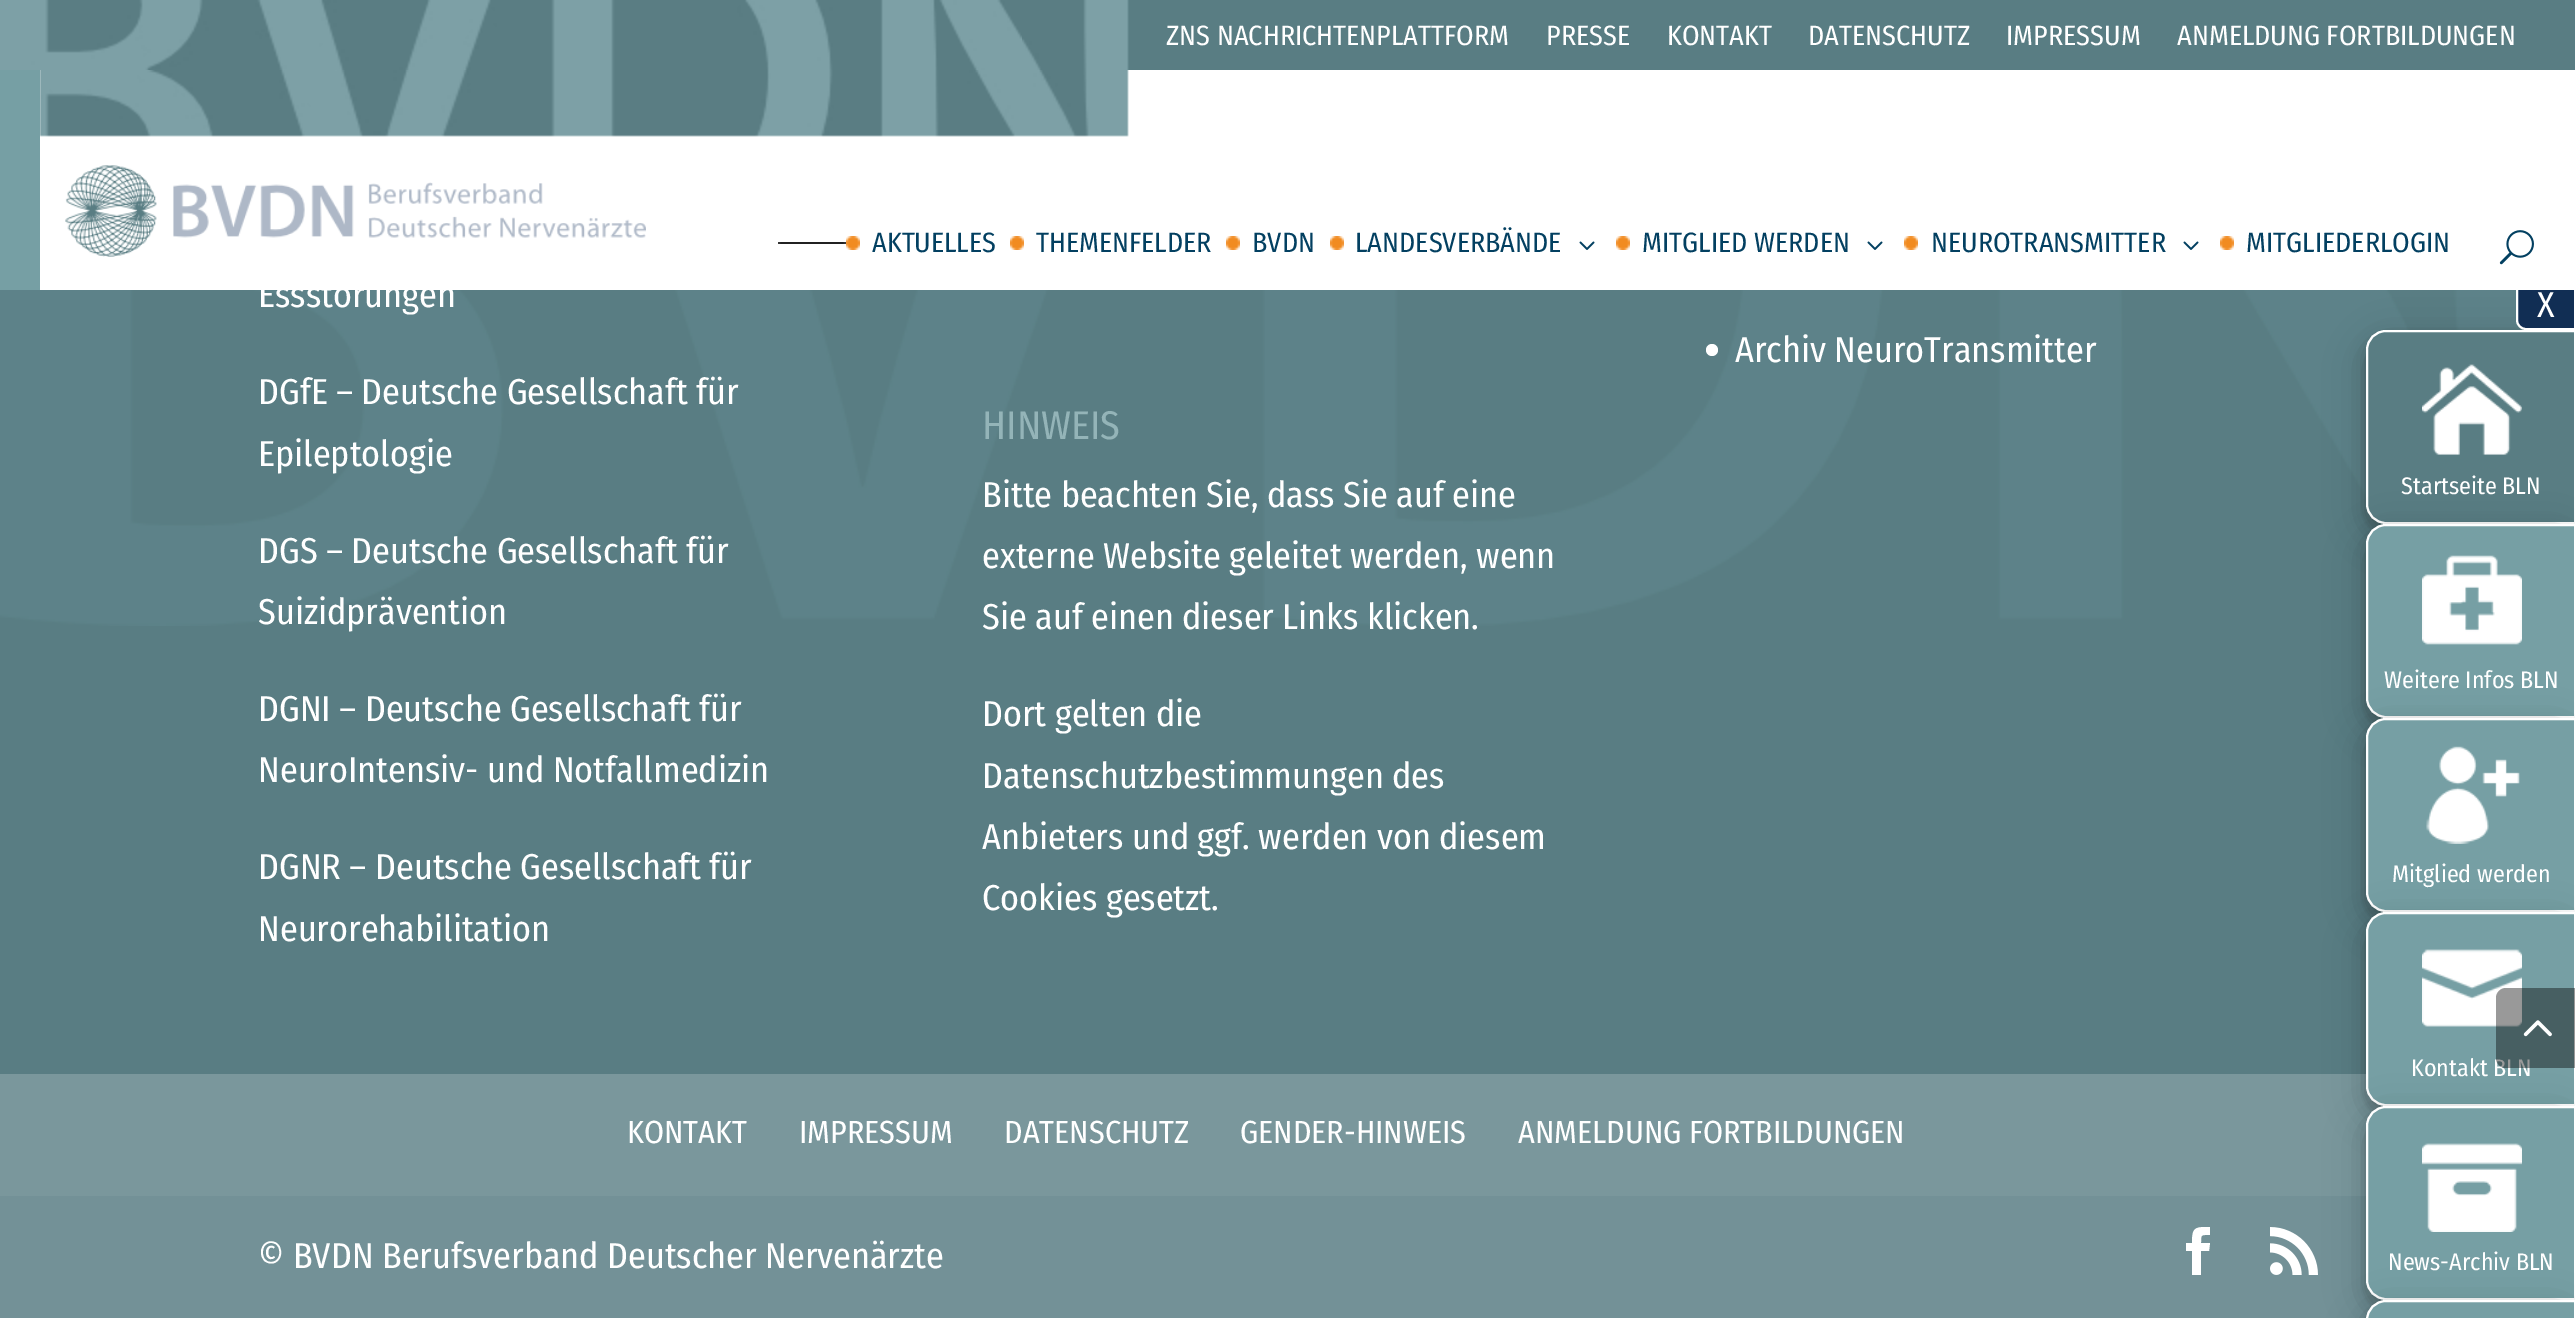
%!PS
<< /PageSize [2575 1318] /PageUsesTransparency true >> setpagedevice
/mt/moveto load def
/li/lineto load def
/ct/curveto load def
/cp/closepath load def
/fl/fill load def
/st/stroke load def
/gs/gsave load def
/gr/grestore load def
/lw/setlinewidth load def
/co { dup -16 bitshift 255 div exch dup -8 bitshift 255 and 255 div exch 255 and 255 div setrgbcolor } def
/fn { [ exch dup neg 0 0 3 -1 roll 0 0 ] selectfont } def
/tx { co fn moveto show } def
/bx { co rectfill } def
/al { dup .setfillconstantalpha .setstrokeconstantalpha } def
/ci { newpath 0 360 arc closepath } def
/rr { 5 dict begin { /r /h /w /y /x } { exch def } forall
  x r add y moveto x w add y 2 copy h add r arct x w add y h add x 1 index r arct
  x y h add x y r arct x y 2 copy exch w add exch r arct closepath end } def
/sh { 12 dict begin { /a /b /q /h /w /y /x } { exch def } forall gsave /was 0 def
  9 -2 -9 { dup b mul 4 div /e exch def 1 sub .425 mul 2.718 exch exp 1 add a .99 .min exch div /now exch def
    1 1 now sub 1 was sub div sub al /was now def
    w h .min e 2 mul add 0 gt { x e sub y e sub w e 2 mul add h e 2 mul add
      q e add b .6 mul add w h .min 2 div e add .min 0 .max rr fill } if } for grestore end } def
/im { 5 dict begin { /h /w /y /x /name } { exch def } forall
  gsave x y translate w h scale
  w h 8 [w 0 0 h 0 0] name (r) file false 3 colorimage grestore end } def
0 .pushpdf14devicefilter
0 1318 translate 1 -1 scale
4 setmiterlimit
0 0 2575 1318 16#597D83 bx
(media/1.raw) 0 0 1129 70 im
(media/8.raw) 0 290 2526 336 im
16#000000 co
2366 342 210 194 20 20 .19 sh
2366 338 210 194 20 8 .2 sh
16#112E54 co
2526 281 mt 2575 281 li 2575 329 li 2526 329 li 2521 329 2517 325 2517 320 ct 2517 290 li 2517 285 2521 281 2526 281 ct cp gs fl gr
16#FFFFFF co
2 lw
st
40 70 2535 220 16#FFFFFF bx
(media/2.raw) 40 70 1089 67 im
0 70 40 220 16#769FA4 bx
(media/3.raw) 65 165 581 92 im
(media/4.raw) 778 242 68 2 im
(media/5.raw) 846 236 14 14 im
(media/5.raw) 1010 236 14 14 im
(media/5.raw) 1226 236 14 14 im
(media/5.raw) 1330 236 14 14 im
(media/6.raw) 1579 241 16 9 im
(media/5.raw) 1616 236 14 14 im
(media/6.raw) 1867 241 16 9 im
(media/5.raw) 1904 236 14 14 im
(media/6.raw) 2183 241 16 9 im
(media/5.raw) 2220 236 14 14 im
(media/7.raw) 2499 230 35 35 im
16#FFFFFF co
1712 350 6 ci fl
0 1074 2386 122 16#7A979C bx
0 1196 2386 122 16#739197 bx
16#FFFFFF co
2192 1275 mt 2201 1275 li 2201 1251 li 2209 1251 li 2210 1243 li 2201 1243 li 2201 1234 2201 1235 2210 1235 ct 2210 1227 li 2195 1227 2192 1227 2192 1243 ct 2186 1243 li 2186 1251 li 2192 1251 li cp fl
(media/9.raw) 2270 1227 48 48 im
16#597D83 co
2386 331 mt 2575 331 li 2575 523 li 2386 523 li 2375.5 523 2367 514.5 2367 504 ct 2367 350 li 2367 339.5 2375.5 331 2386 331 ct cp gs fl gr
16#FFFFFF co
st
(media/11.raw) 2422 364 100 91 im
16#000000 co
2366 536 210 194 20 20 .19 sh
2366 532 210 194 20 8 .2 sh
16#769FA4 co
2386 525 mt 2575 525 li 2575 717 li 2386 717 li 2375.5 717 2367 708.5 2367 698 ct 2367 544 li 2367 533.5 2375.5 525 2386 525 ct cp gs fl gr
16#FFFFFF co
st
(media/12.raw) 2422 555 100 90 im
16#000000 co
2366 730 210 194 20 20 .19 sh
2366 726 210 194 20 8 .2 sh
16#769FA4 co
2386 719 mt 2575 719 li 2575 911 li 2386 911 li 2375.5 911 2367 902.5 2367 892 ct 2367 738 li 2367 727.5 2375.5 719 2386 719 ct cp gs fl gr
16#FFFFFF co
st
(media/13.raw) 2426 746 94 98 im
16#000000 co
2366 924 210 194 20 20 .19 sh
2366 920 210 194 20 8 .2 sh
16#769FA4 co
2386 913 mt 2575 913 li 2575 1105 li 2386 1105 li 2375.5 1105 2367 1096.5 2367 1086 ct 2367 932 li 2367 921.5 2375.5 913 2386 913 ct cp gs fl gr
16#FFFFFF co
st
(media/14.raw) 2422 949 100 78 im
16#000000 co
2366 1118 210 194 20 20 .19 sh
2366 1114 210 194 20 8 .2 sh
16#769FA4 co
2386 1107 mt 2575 1107 li 2575 1299 li 2386 1299 li 2375.5 1299 2367 1290.5 2367 1280 ct 2367 1126 li 2367 1115.5 2375.5 1107 2386 1107 ct cp gs fl gr
16#FFFFFF co
st
16#000000 co
2366 1312 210 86 20 20 .19 sh
2366 1308 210 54 20 8 .2 sh
16#769FA4 co
2386 1301 mt 2575 1301 li 2575 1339 li 2386 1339 li 2375.5 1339 2367 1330.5 2367 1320 ct 2367 1309.5 2375.5 1301 2386 1301 ct cp gs fl gr
16#FFFFFF co
st
(media/15.raw) 2422 1143 100 89 im
(ZNS NACHRICHTENPLATTFORM) 1166 45 /FiraSansCondensed-Regular 28 16#FFFFFF tx
(PRESSE) 1546 45 /FiraSansCondensed-Regular 28 16#FFFFFF tx
(KONTAKT) 1667 45 /FiraSansCondensed-Regular 28 16#FFFFFF tx
(DATENSCHUTZ) 1808 45 /FiraSansCondensed-Regular 28 16#FFFFFF tx
(IMPRESSUM) 2006 45 /FiraSansCondensed-Regular 28 16#FFFFFF tx
(ANMELDUNG FORTBILDUNGEN) 2177 45 /FiraSansCondensed-Regular 28 16#FFFFFF tx
(AKTUELLES) 872 252 /FiraSansCondensed-Regular 28 16#034061 tx
(THEMENFELDER) 1036 252 /FiraSansCondensed-Regular 28 16#034061 tx
(BVDN) 1252 252 /FiraSansCondensed-Regular 28 16#034061 tx
(LANDESVERBÄNDE) 1355 252 /FiraSansCondensed-Regular 28 16#034061 tx
(MITGLIED WERDEN) 1642 252 /FiraSansCondensed-Regular 28 16#034061 tx
(NEUROTRANSMITTER) 1931 252 /FiraSansCondensed-Regular 28 16#034061 tx
(MITGLIEDERLOGIN) 2246 252 /FiraSansCondensed-Regular 28 16#034061 tx
(Essstörungen) 258 307 /FiraSansCondensed-Regular 36 16#FFFFFF tx
(DGfE – Deutsche Gesellschaft für) 258 404 /FiraSansCondensed-Regular 36 16#FFFFFF tx
(Epileptologie) 258 466 /FiraSansCondensed-Regular 36 16#FFFFFF tx
(DGS – Deutsche Gesellschaft für) 258 563 /FiraSansCondensed-Regular 36 16#FFFFFF tx
(Suizidprävention) 258 624 /FiraSansCondensed-Regular 36 16#FFFFFF tx
(DGNI – Deutsche Gesellschaft für) 258 721 /FiraSansCondensed-Regular 36 16#FFFFFF tx
(NeuroIntensiv- und Notfallmedizin) 258 782 /FiraSansCondensed-Regular 36 16#FFFFFF tx
(DGNR – Deutsche Gesellschaft für) 258 879 /FiraSansCondensed-Regular 36 16#FFFFFF tx
(Neurorehabilitation) 258 941 /FiraSansCondensed-Regular 36 16#FFFFFF tx
(Archiv NeuroTransmitter) 1735 362 /FiraSansCondensed-Regular 36 16#FFFFFF tx
(HINWEIS) 982 439 /FiraSansCondensed-Regular 40 16#94B4B8 tx
(Bitte beachten Sie, dass Sie auf eine) 982 507 /FiraSansCondensed-Regular 36 16#FFFFFF tx
(externe Website geleitet werden, wenn) 982 568 /FiraSansCondensed-Regular 36 16#FFFFFF tx
(Sie auf einen dieser Links klicken.) 982 629 /FiraSansCondensed-Regular 36 16#FFFFFF tx
(Dort gelten die) 982 726 /FiraSansCondensed-Regular 36 16#FFFFFF tx
(Datenschutzbestimmungen des) 982 788 /FiraSansCondensed-Regular 36 16#FFFFFF tx
(Anbieters und ggf. werden von diesem) 982 849 /FiraSansCondensed-Regular 36 16#FFFFFF tx
(Cookies gesetzt.) 982 910 /FiraSansCondensed-Regular 36 16#FFFFFF tx
(KONTAKT) 627 1143 /FiraSansCondensed-Regular 32 16#FFFFFF tx
(IMPRESSUM) 799 1143 /FiraSansCondensed-Regular 32 16#FFFFFF tx
(DATENSCHUTZ) 1004 1143 /FiraSansCondensed-Regular 32 16#FFFFFF tx
(GENDER-HINWEIS) 1240 1143 /FiraSansCondensed-Regular 32 16#FFFFFF tx
(ANMELDUNG FORTBILDUNGEN) 1518 1143 /FiraSansCondensed-Regular 32 16#FFFFFF tx
(© BVDN Berufsverband Deutscher Nervenärzte) 258 1268 /FiraSansCondensed-Regular 36 16#FFFFFF tx
(X) 2537 317 /FiraSansCondensed-Regular 36 16#FFFFFF tx
(Startseite BLN) 2401 494 /FiraSansCondensed-Regular 24 16#FFFFFF tx
(Weitere Infos BLN) 2384 688 /FiraSansCondensed-Regular 24 16#FFFFFF tx
(Mitglied werden) 2392 882 /FiraSansCondensed-Regular 24 16#FFFFFF tx
(Kontakt BLN) 2411 1076 /FiraSansCondensed-Regular 24 16#FFFFFF tx
0.4 al
16#000000 co
2506 988 mt 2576 988 li 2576 1068 li 2506 1068 li 2500.5 1068 2496 1063.5 2496 1058 ct 2496 998 li 2496 992.5 2500.5 988 2506 988 ct cp fl
1 al
(media/10.raw) 2523 1020 29 17 im
(News-Archiv BLN) 2388 1270 /FiraSansCondensed-Regular 24 16#FFFFFF tx
.poppdf14devicefilter showpage
